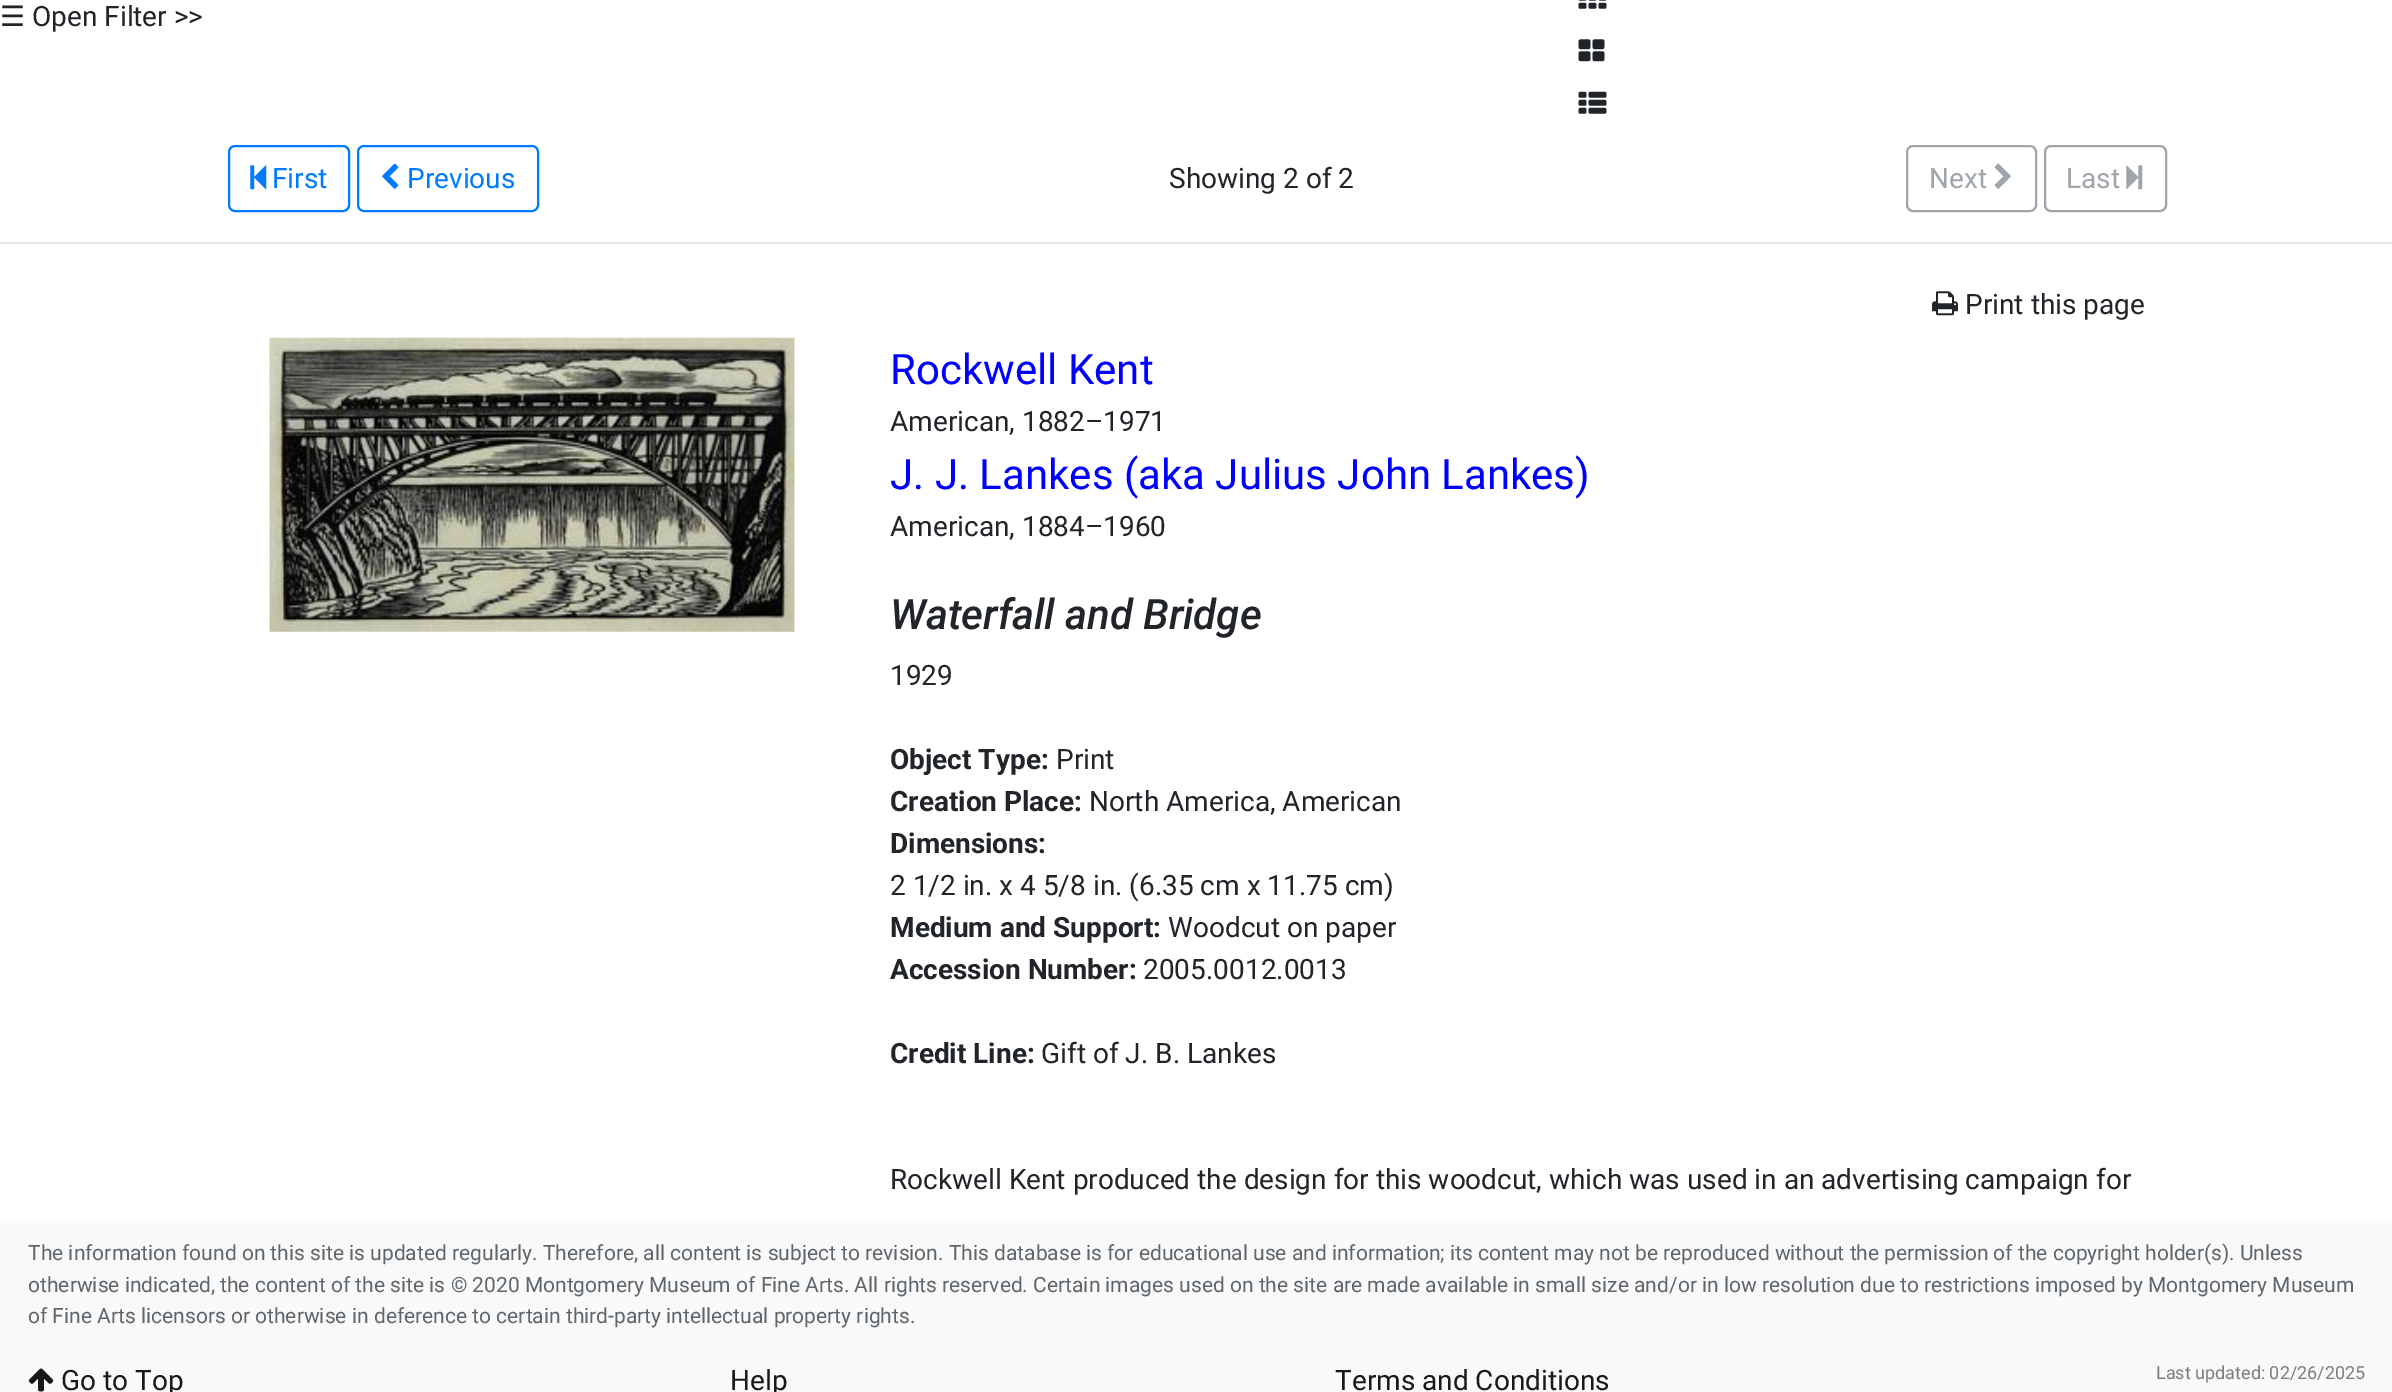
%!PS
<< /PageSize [2392 1392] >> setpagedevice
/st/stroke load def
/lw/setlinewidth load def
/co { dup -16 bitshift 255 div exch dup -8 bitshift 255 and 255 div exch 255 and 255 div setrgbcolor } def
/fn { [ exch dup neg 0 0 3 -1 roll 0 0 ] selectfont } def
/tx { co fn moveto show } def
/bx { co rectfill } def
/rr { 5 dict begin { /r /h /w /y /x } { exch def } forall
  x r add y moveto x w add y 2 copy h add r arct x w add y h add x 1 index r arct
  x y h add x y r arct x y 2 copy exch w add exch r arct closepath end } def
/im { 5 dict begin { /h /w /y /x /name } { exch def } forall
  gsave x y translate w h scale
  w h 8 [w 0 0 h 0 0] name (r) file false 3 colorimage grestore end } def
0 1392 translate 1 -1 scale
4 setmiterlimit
0 0 2392 1392 16#FFFFFF bx
(media/1.raw) 1578 0 29 9 im
(media/2.raw) 1578 39 27 23 im
(media/3.raw) 1578 91 29 23 im
16#007BFF co
2 lw
229 146 120 65 6 rr st
(media/4.raw) 250 165 17 25 im
358 146 180 65 6 rr st
(media/5.raw) 382 163 17 26 im
16#9FA5AB co
1907 146 129 65 6 rr st
(media/6.raw) 1994 163 17 26 im
2045 146 121 65 6 rr st
(media/7.raw) 2126 165 17 25 im
0 242 2392 2 16#E6E6E6 bx
(media/8.raw) 1932 291 26 25 im
(media/9.raw) 269 337 526 295 im
0 1223 2392 169 16#F8F9FA bx
(media/10.raw) 28 1368 26 24 im
(☰) 0 26 /DejaVuSans-Regular 28 16#212529 tx
(Open Filter >>) 32 26 /Roboto-Regular 28 16#212529 tx
(First) 272 188 /Roboto-Regular 28 16#007BFF tx
(Previous) 407 188 /Roboto-Regular 28 16#007BFF tx
(Showing 2 of 2) 1169 188 /Roboto-Regular 28 16#212529 tx
(Next) 1929 188 /Roboto-Regular 28 16#9FA5AB tx
(Last) 2066 188 /Roboto-Regular 28 16#9FA5AB tx
(Print this page) 1965 314 /Roboto-Regular 28 16#212529 tx
(Rockwell Kent) 890 384 /Roboto-Regular 42 16#0000FF tx
(American, 1882–1971) 890 431 /Roboto-Regular 28 16#212529 tx
(J. J. Lankes \(aka Julius John Lankes\)) 890 489 /Roboto-Regular 42 16#0000FF tx
(American, 1884–1960) 890 536 /Roboto-Regular 28 16#212529 tx
(Waterfall and Bridge) 890 629 /Roboto-MediumItalic 42 16#212529 tx
(1929) 890 685 /Roboto-Regular 28 16#212529 tx
(Object Type:) 890 769 /Roboto-Bold 28 16#212529 tx
(Print) 1056 769 /Roboto-Regular 28 16#212529 tx
(Creation Place:) 890 811 /Roboto-Bold 28 16#212529 tx
(North America, American) 1089 811 /Roboto-Regular 28 16#212529 tx
(Dimensions:) 890 853 /Roboto-Bold 28 16#212529 tx
(2 1/2 in. x 4 5/8 in. \(6.35 cm x 11.75 cm\)) 890 895 /Roboto-Regular 28 16#212529 tx
(Medium and Support:) 890 937 /Roboto-Bold 28 16#212529 tx
(Woodcut on paper) 1168 937 /Roboto-Regular 28 16#212529 tx
(Accession Number:) 890 979 /Roboto-Bold 28 16#212529 tx
(2005.0012.0013) 1143 979 /Roboto-Regular 28 16#212529 tx
(Credit Line:) 890 1063 /Roboto-Bold 28 16#212529 tx
(Gift of J. B. Lankes) 1041 1063 /Roboto-Regular 28 16#212529 tx
(Rockwell Kent produced the design for this woodcut, which was used in an advertising campaign for) 890 1189 /Roboto-Regular 28 16#212529 tx
(The information found on this site is updated regularly. Therefore, all content is subject to revision. This database is for educational use and information; its content may not be reproduced without the permission of the copyright holder\(s\). Unless) 28 1260 /Roboto-Regular 21 16#626568 tx
(otherwise indicated, the content of the site is © 2020 Montgomery Museum of Fine Arts. All rights reserved. Certain images used on the site are made available in small size and/or in low resolution due to restrictions imposed by Montgomery Museum) 28 1292 /Roboto-Regular 21 16#626568 tx
(of Fine Arts licensors or otherwise in deference to certain third-party intellectual property rights.) 28 1323 /Roboto-Regular 21 16#626568 tx
(Go to Top) 61 1390 /Roboto-Regular 28 16#191919 tx
(Help) 730 1390 /Roboto-Regular 28 16#191919 tx
(Terms and Conditions) 1335 1390 /Roboto-Regular 28 16#191919 tx
(Last updated: 02/26/2025) 2156 1379 /Roboto-Regular 18 16#7C7D7D tx
showpage
